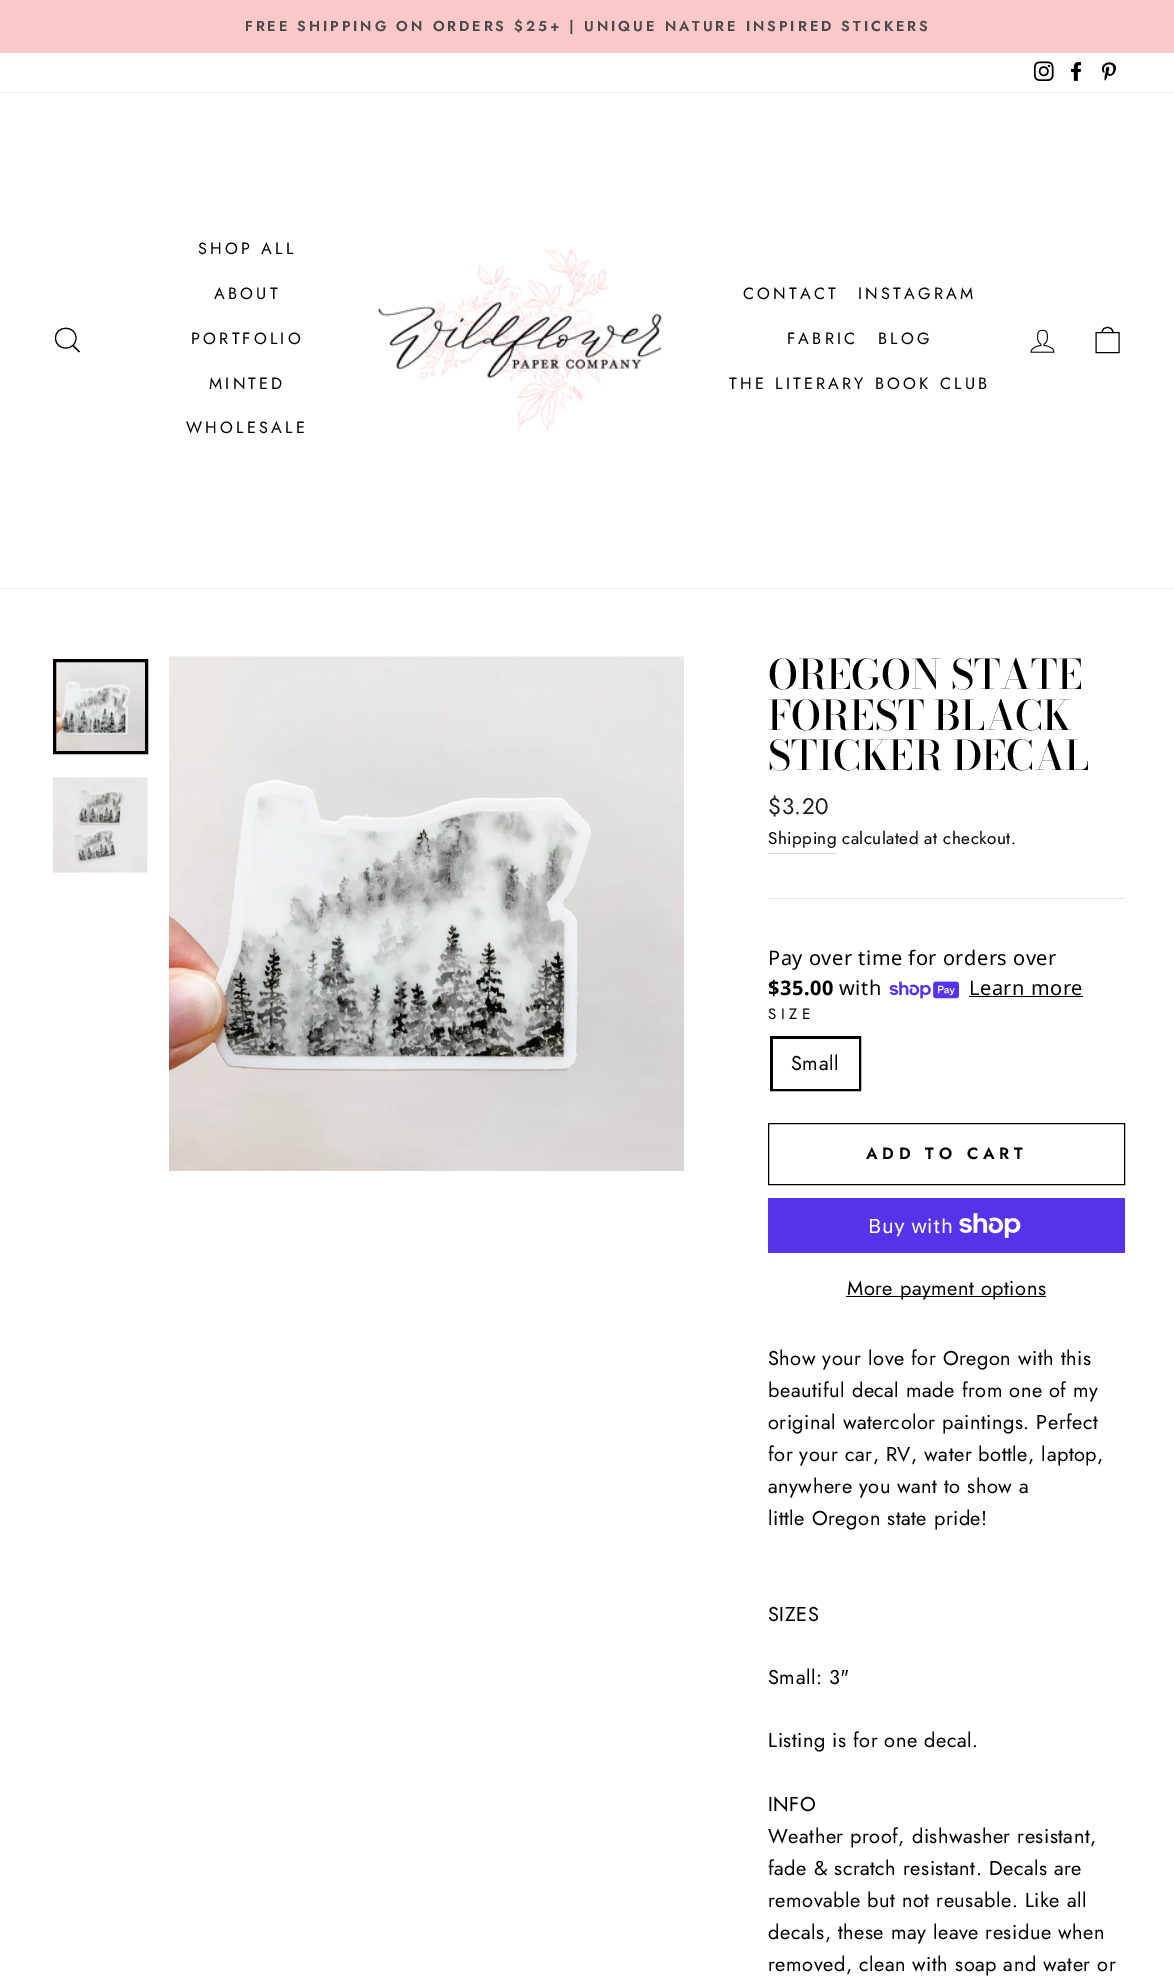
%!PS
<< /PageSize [1174 1980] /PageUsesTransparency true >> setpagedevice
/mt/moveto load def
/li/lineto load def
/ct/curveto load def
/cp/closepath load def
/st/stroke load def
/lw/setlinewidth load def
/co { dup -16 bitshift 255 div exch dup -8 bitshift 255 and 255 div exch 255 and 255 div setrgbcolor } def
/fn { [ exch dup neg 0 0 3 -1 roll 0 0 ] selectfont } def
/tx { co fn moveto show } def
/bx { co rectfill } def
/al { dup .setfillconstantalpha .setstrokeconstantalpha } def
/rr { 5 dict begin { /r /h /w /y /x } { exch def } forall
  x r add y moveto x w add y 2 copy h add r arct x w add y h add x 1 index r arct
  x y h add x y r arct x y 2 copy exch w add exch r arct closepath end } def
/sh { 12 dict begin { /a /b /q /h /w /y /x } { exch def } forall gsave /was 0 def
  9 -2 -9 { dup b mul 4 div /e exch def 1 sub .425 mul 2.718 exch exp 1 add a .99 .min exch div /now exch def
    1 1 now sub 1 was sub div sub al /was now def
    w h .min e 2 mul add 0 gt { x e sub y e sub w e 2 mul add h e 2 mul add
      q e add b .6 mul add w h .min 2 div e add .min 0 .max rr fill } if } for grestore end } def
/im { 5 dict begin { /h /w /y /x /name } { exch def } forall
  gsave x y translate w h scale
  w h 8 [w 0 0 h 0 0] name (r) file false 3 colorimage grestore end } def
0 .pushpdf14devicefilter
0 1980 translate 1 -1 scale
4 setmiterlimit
0 0 1174 1980 16#FFFFFF bx
0 0 1174 53 16#FAC8C9 bx
(media/1.raw) 1034 61 20 20 im
(media/2.raw) 1071 62 11 19 im
(media/3.raw) 1102 62 14 19 im
16#000000 co
0 93 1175 495 0 .5 .2 sh
0 93 1174 495 16#FFFFFF bx
16#000000 co
1.1 lw
76 338 mt 76 351.5 55.5 351.5 55.5 338 ct 55.5 325 76 325 76 338 ct cp 79.5 352 mt 73 345.5 li st
(media/4.raw) 378 248 284 184 im
(media/5.raw) 1030 329 25 24 im
1096 332.5 mt 1119 332.5 li 1119 352.5 li 1096 352.5 li cp 1102 332.5 mt 1102 325.5 1113 325.5 1113 332.5 ct st
(media/6.raw) 53 658 95 93 im
3 lw
54.5 660.5 92 92 rectstroke
(media/7.raw) 53 777 95 96 im
(media/8.raw) 169 656 515 515 im
768 853 68 1 16#D9D9D9 bx
768 898 357 1 16#E8E8E1 bx
(media/9.raw) 889 981 70 18 im
969 996 114 1 16#000000 bx
771.5 1037.5 88 52 rectstroke
773 1039 86 50 16#FFFFFF bx
16#000000 co
1 lw
768.5 1123.5 356 61 rectstroke
768 1198 357 55 16#5433EB bx
(media/10.raw) 959 1213 62 25 im
846 1296 200 1 16#000000 bx
/Jost-SemiBold 14.45 fn
16#494949 co
245 31 mt 2.9 0 (FREE SHIPPING ON ORDERS $25+ | UNIQUE NATURE INSPIRED STICKERS) ashow
/Jost-Regular 16.25 fn
16#000000 co
198 254 mt 3.25 0 (SHOP ALL) ashow
214 299 mt 3.25 0 (ABOUT) ashow
191 344 mt 3.25 0 (PORTFOLIO) ashow
209 389 mt 3.25 0 (MINTED) ashow
186 433 mt 3.25 0 (WHOLESALE) ashow
743 299 mt 3.25 0 (CONTACT) ashow
858 299 mt 3.25 0 (INSTAGRAM) ashow
787 344 mt 3.25 0 (FABRIC) ashow
878 344 mt 3.25 0 (BLOG) ashow
729 389 mt 3.25 0 (THE LITERARY BOOK CLUB) ashow
(OREGON STATE) 768 689 /BodoniModa-Medium 40.5 16#000000 tx
(FOREST BLACK) 768 730 /BodoniModa-Medium 40.5 16#000000 tx
(STICKER DECAL) 768 770 /BodoniModa-Medium 40.5 16#000000 tx
/Jost-Regular 22.5 fn
16#1C1D1D co
768 814 mt .5 0 ($3.20) ashow
/Jost-Regular 17 fn
16#000000 co
768 844 mt .5 0 (Shipping) ashow
842 844 mt .5 0 (calculated at checkout.) ashow
/NotoSans-Regular 20 fn
768 965 mt .5 0 (Pay over time for orders over) ashow
/NotoSans-Bold 20 fn
768 995 mt .5 0 ($35.00) ashow
/NotoSans-Regular 20 fn
839 995 mt .5 0 (with) ashow
969 995 mt .5 0 (Learn more) ashow
/Jost-Regular 15 fn
768 1019 mt 4.5 0 (SIZE) ashow
/Jost-Regular 20 fn
791 1070 mt .5 0 (Small) ashow
/Jost-SemiBold 16.25 fn
866 1159 mt 4.9 0 (ADD TO CART) ashow
/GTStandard-Regular 20 fn
16#FFFFFF co
868 1233 mt .5 0 (Buy with) ashow
/Jost-Regular 20 fn
16#000000 co
847 1295 mt .5 0 (More payment options) ashow
768 1365 mt .5 0 (Show your love for Oregon with this) ashow
768 1397 mt .5 0 (beautiful decal made from one of my) ashow
768 1429 mt .5 0 (original watercolor paintings. Perfect) ashow
768 1461 mt .5 0 (for your car, RV, water bottle, laptop,) ashow
768 1493 mt .5 0 (anywhere you want to show a) ashow
768 1525 mt .5 0 (little Oregon state pride!) ashow
768 1621 mt .5 0 (SIZES) ashow
768 1684 mt .5 0 (Small: 3") ashow
768 1747 mt .5 0 (Listing is for one decal.) ashow
768 1811 mt .5 0 (INFO) ashow
768 1843 mt .5 0 (Weather proof, dishwasher resistant,) ashow
768 1875 mt .5 0 (fade & scratch resistant. Decals are) ashow
768 1907 mt .5 0 (removable but not reusable. Like all) ashow
768 1939 mt .5 0 (decals, these may leave residue when) ashow
768 1971 mt .5 0 (removed, clean with soap and water or) ashow
.poppdf14devicefilter showpage
